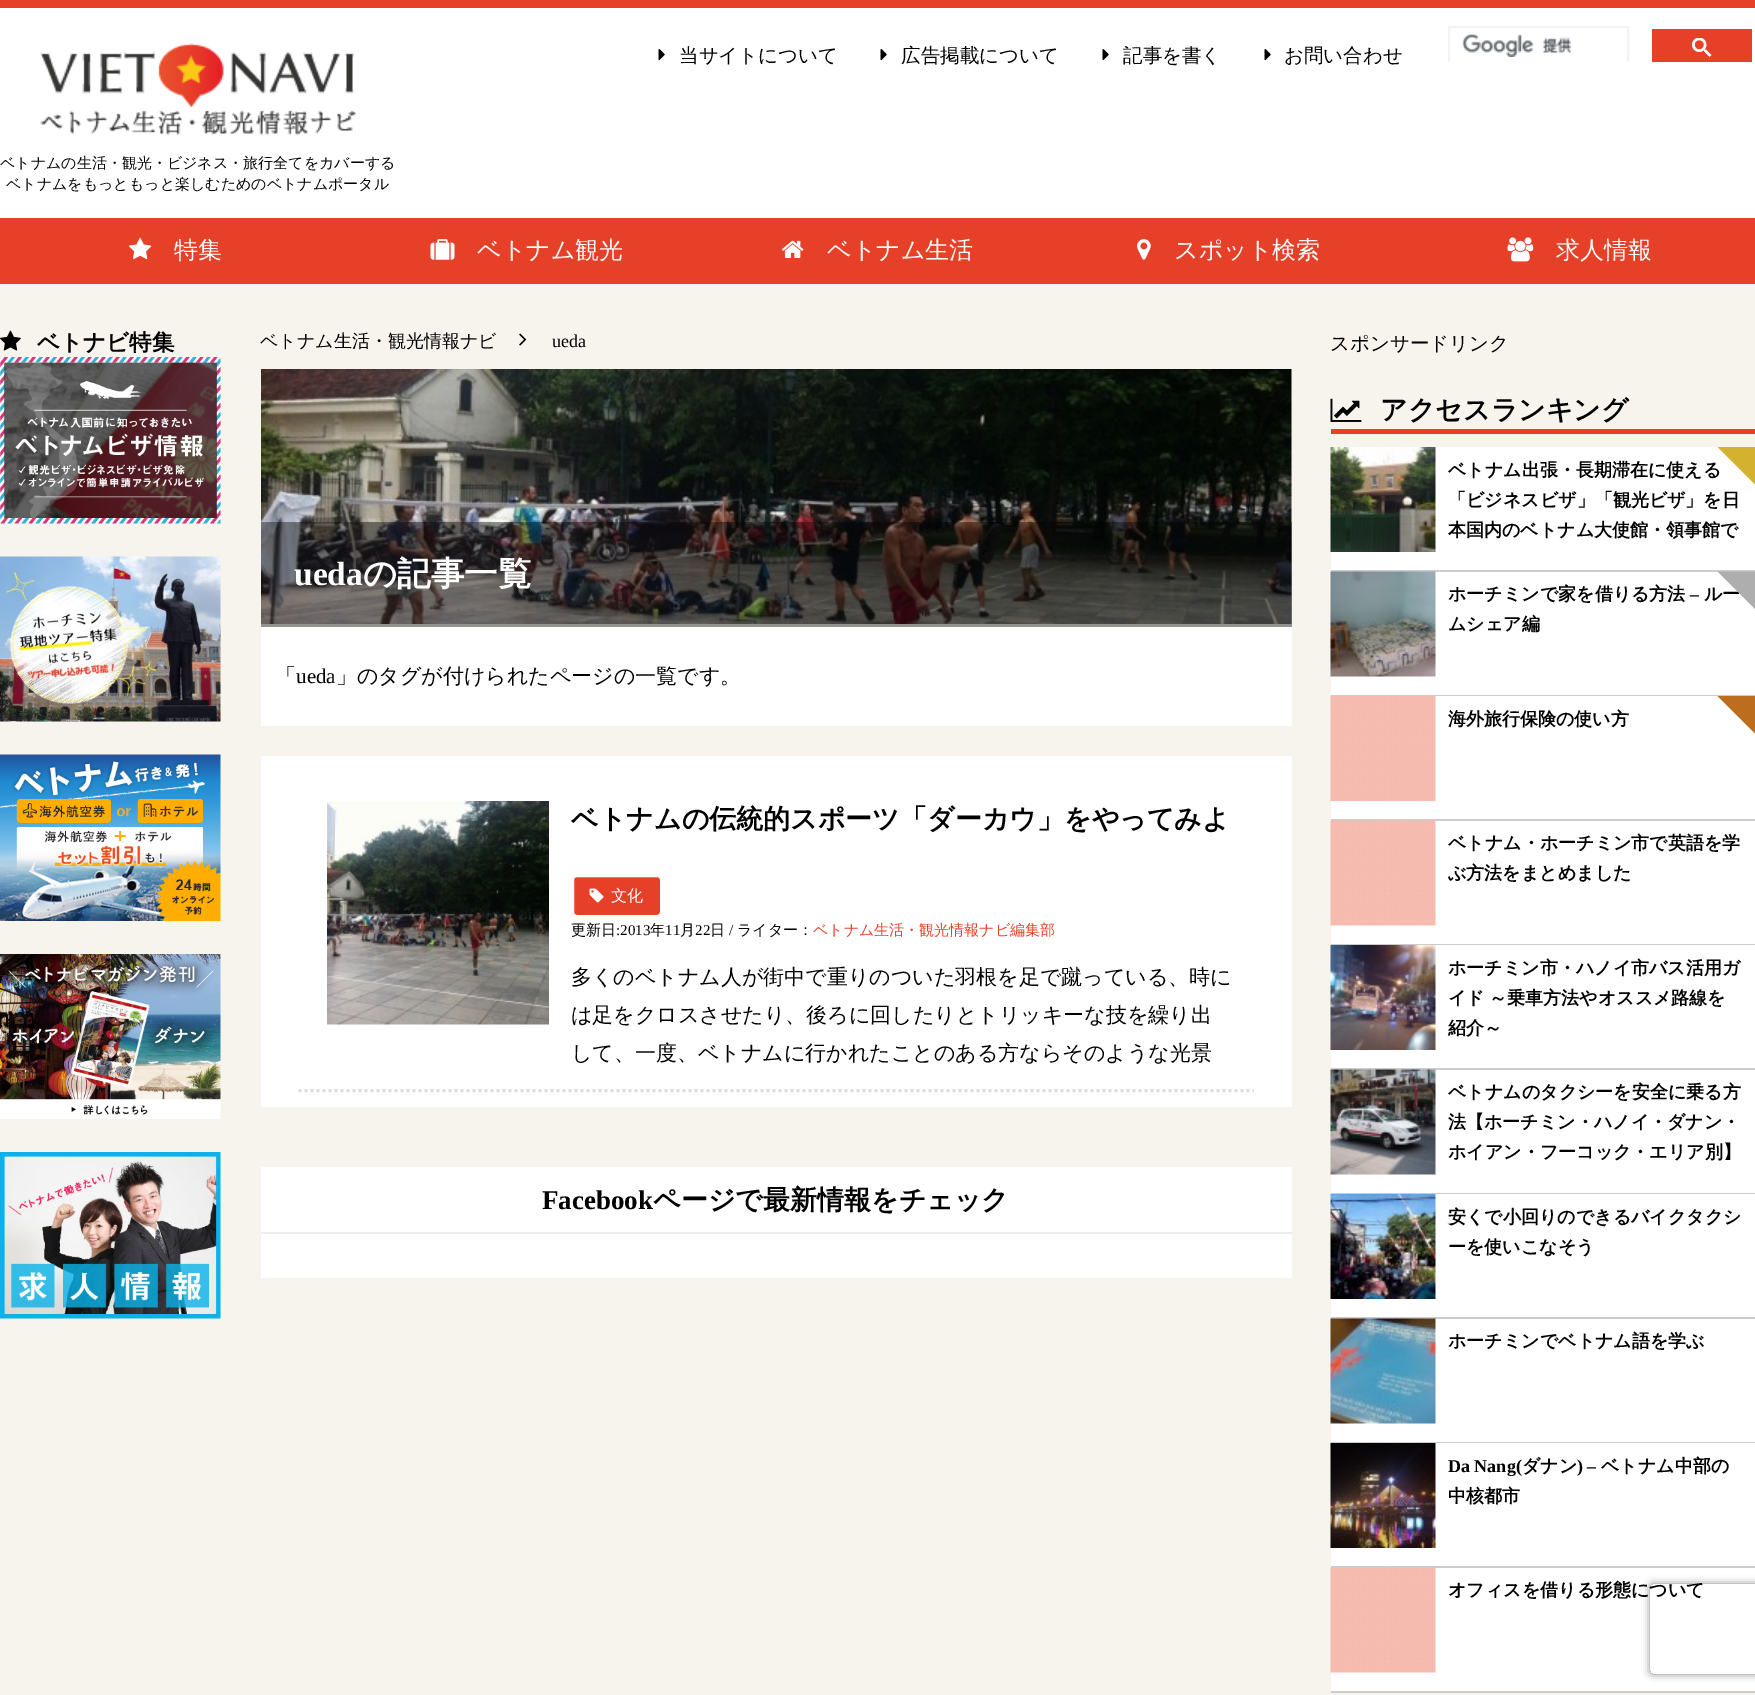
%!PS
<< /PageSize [1755 1695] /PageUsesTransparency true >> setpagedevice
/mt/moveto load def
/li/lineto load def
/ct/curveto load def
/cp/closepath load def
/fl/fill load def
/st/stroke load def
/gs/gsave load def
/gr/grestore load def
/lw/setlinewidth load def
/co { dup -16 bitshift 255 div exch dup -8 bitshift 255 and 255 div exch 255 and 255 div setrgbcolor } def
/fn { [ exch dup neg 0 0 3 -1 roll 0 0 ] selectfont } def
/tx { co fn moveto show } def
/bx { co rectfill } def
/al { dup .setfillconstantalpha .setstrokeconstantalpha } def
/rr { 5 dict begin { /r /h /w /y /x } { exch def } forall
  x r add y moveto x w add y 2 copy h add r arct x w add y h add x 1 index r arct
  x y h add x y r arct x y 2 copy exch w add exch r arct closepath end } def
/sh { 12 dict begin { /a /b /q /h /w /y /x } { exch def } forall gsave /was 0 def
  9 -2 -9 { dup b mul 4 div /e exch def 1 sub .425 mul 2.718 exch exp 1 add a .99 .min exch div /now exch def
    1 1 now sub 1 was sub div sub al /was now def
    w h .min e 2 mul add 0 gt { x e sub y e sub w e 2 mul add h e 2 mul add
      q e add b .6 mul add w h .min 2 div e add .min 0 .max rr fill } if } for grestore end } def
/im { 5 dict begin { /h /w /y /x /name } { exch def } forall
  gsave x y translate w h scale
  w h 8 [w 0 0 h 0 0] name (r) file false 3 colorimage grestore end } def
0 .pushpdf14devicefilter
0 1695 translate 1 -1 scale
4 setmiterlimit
0 0 1755 1695 16#F6F4ED bx
0 8 1755 210 16#FFFFFF bx
0 0 1755 8 16#E64028 bx
(media/1.raw) 658 49 7 12 im
(media/1.raw) 880 49 7 12 im
(media/1.raw) 1102 49 7 12 im
(media/1.raw) 1264 49 7 12 im
gs
1446 23 309 39 rectclip
16#F3F3F3 co
2 lw
1449 27 179 38 rectstroke
gr
(media/2.raw) 1462 34 110 23 im
1652 29 100 33 16#E64028 bx
(media/3.raw) 1692 38 20 19 im
(media/4.raw) 40 43 316 93 im
0 218 1755 66 16#E64028 bx
(media/5.raw) 129 237 23 23 im
(media/6.raw) 430 239 25 21 im
(media/7.raw) 781 240 23 18 im
(media/8.raw) 1137 239 14 21 im
(media/9.raw) 1507 237 27 25 im
(media/10.raw) 0 330 21 21 im
(media/11.raw) 0 357 221 167 im
(media/12.raw) 0 556 221 166 im
(media/13.raw) 0 754 221 167 im
(media/14.raw) 0 954 221 165 im
(media/15.raw) 0 1152 221 167 im
(media/16.raw) 519 333 8 13 im
(media/17.raw) 261 369 1031 255 im
0.4 al
261 522 1031 105 16#000000 bx
1 al
261 627 1031 99 16#FFFFFF bx
261 756 1031 351 16#FFFFFF bx
16#DCDCDC co
3 lw
[3 3] 0 setdash
298.5 1090.5 mt 1254 1090.5 li st
(media/18.raw) 327 801 222 224 im
16#E64028 co
573 876 88 40 4 rr gs fl gr
16#FFFFFF co
2 lw
[] 0 setdash
st
(media/19.raw) 589 888 15 15 im
261 1167 1031 111 16#FFFFFF bx
261 1232 1031 2 16#ECECEC bx
1331 429 424 5 16#E64028 bx
(media/20.raw) 1330 398 32 24 im
1331 447 424 123 16#FFFFFF bx
1331 570 424 2 16#CCCCCC bx
(media/21.raw) 1330 447 106 105 im
1331 572 424 123 16#FFFFFF bx
1331 695 424 1 16#CCCCCC bx
(media/22.raw) 1330 571 106 106 im
1331 696 424 123 16#FFFFFF bx
1331 819 424 2 16#CCCCCC bx
(media/23.raw) 1330 696 106 105 im
16#BC6D1E co
1717.5 696 mt 1755 696 li 1755 733.5 li cp fl
1331 821 424 123 16#FFFFFF bx
1331 944 424 1 16#CCCCCC bx
(media/24.raw) 1330 820 106 106 im
1331 945 424 123 16#FFFFFF bx
1331 1068 424 2 16#CCCCCC bx
(media/25.raw) 1330 945 106 105 im
1331 1070 424 123 16#FFFFFF bx
1331 1193 424 1 16#CCCCCC bx
(media/26.raw) 1330 1069 106 106 im
1331 1194 424 123 16#FFFFFF bx
1331 1317 424 2 16#CCCCCC bx
(media/27.raw) 1330 1194 106 105 im
1331 1319 424 123 16#FFFFFF bx
1331 1442 424 1 16#CCCCCC bx
(media/28.raw) 1330 1318 106 106 im
1331 1443 424 123 16#FFFFFF bx
1331 1566 424 2 16#CCCCCC bx
(media/29.raw) 1330 1443 106 105 im
1331 1568 424 123 16#FFFFFF bx
1331 1691 424 2 16#CCCCCC bx
(media/24.raw) 1330 1567 106 106 im
gs
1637 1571 mt 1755 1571 li 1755 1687 li 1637 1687 li cp 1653 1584 mt 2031 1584 li 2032.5 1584 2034 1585.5 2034 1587 ct 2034 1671 li 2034 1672.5 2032.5 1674 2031 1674 ct 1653 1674 li 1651.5 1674 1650 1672.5 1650 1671 ct 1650 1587 li 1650 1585.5 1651.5 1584 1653 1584 ct cp eoclip newpath
16#808080 co
1650 1584 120 90 3 4 1 sh
gr
(当サイトについて) 679 62 /WenQuanYiZenHei-Medium 19.5 16#000000 tx
(広告掲載について) 901 62 /WenQuanYiZenHei-Medium 19.5 16#000000 tx
(記事を書く) 1123 62 /WenQuanYiZenHei-Medium 19.5 16#000000 tx
(お問い合わせ) 1284 62 /WenQuanYiZenHei-Medium 19.5 16#000000 tx
(ベトナムの生活・観光・ビジネス・旅行全てをカバーする) 0 168 /WenQuanYiZenHei-Medium 15 16#000000 tx
(ベトナムをもっともっと楽しむためのベトナムポータル) 6 189 /WenQuanYiZenHei-Medium 15 16#000000 tx
(特集) 174 258 /WenQuanYiZenHei-Medium 24 16#FFFFFF tx
(ベトナム観光) 477 258 /WenQuanYiZenHei-Medium 24 16#FFFFFF tx
(ベトナム生活) 827 258 /WenQuanYiZenHei-Medium 24 16#FFFFFF tx
(スポット検索) 1174 258 /WenQuanYiZenHei-Medium 24 16#FFFFFF tx
(求人情報) 1556 258 /WenQuanYiZenHei-Medium 24 16#FFFFFF tx
(ベトナビ特集) 37 350 /WenQuanYiZenHei-Bold 22.5 16#000000 tx
(ベトナム生活・観光情報ナビ) 260 347 /WenQuanYiZenHei-Medium 18 16#000000 tx
(ueda) 552 347 /LiberationSerif-Regular 18 16#000000 tx
(ueda) 294 585 /LiberationSerif-Bold 33.5 16#FFFFFF tx
(の記事一覧) 363 585 /WenQuanYiZenHei-Bold 33.5 16#FFFFFF tx
(「) 275 683 /WenQuanYiZenHei-Medium 21 16#000000 tx
(ueda) 296 683 /LiberationSerif-Regular 21 16#000000 tx
(」のタグが付けられたページの一覧です。) 336 683 /WenQuanYiZenHei-Medium 21 16#000000 tx
(ベトナムの伝統的スポーツ「ダーカウ」をやってみよ) 571 828 /WenQuanYiZenHei-Bold 27 16#000000 tx
(文化) 611 901 /WenQuanYiZenHei-Medium 16 16#FFFFFF tx
(更新日) 571 935 /WenQuanYiZenHei-Medium 15 16#000000 tx
(:2013) 616 935 /LiberationSerif-Regular 15 16#000000 tx
(年) 650 935 /WenQuanYiZenHei-Medium 15 16#000000 tx
(11) 665 935 /LiberationSerif-Regular 15 16#000000 tx
(月) 680 935 /WenQuanYiZenHei-Medium 15 16#000000 tx
(22) 695 935 /LiberationSerif-Regular 15 16#000000 tx
(日) 710 935 /WenQuanYiZenHei-Medium 15 16#000000 tx
(/) 729 935 /LiberationSerif-Regular 15 16#000000 tx
(ライター：) 737 935 /WenQuanYiZenHei-Medium 15 16#000000 tx
(ベトナム生活・観光情報ナビ編集部) 813 935 /WenQuanYiZenHei-Medium 15 16#E64028 tx
(多くのベトナム人が街中で重りのついた羽根を足で蹴っている、時に) 571 984 /WenQuanYiZenHei-Medium 21 16#000000 tx
(は足をクロスさせたり、後ろに回したりとトリッキーな技を繰り出) 571 1022 /WenQuanYiZenHei-Medium 21 16#000000 tx
(して、一度、ベトナムに行かれたことのある方ならそのような光景) 571 1060 /WenQuanYiZenHei-Medium 21 16#000000 tx
(Facebook) 542 1209 /LiberationSerif-Bold 27 16#000000 tx
(ページで最新情報をチェック) 653 1209 /WenQuanYiZenHei-Bold 27 16#000000 tx
(スポンサードリンク) 1330 350 /WenQuanYiZenHei-Medium 19.5 16#000000 tx
(アクセスランキング) 1380 419 /WenQuanYiZenHei-Bold 27 16#000000 tx
(ベトナム出張・長期滞在に使える) 1448 476 /WenQuanYiZenHei-Bold 18 16#000000 tx
16#D4B230 co
1717.5 447 mt 1755 447 li 1755 484.5 li cp fl
(「ビジネスビザ」「観光ビザ」を日) 1448 506 /WenQuanYiZenHei-Bold 18 16#000000 tx
(本国内のベトナム大使館・領事館で) 1448 536 /WenQuanYiZenHei-Bold 18 16#000000 tx
(ホーチミンで家を借りる方法) 1448 600 /WenQuanYiZenHei-Bold 18 16#000000 tx
(–) 1690 600 /LiberationSerif-Bold 18 16#000000 tx
(ルー) 1704 600 /WenQuanYiZenHei-Bold 18 16#000000 tx
16#AEAEAE co
1717.5 571.5 mt 1755 571.5 li 1755 609 li cp fl
(ムシェア編) 1448 630 /WenQuanYiZenHei-Bold 18 16#000000 tx
(海外旅行保険の使い方) 1448 725 /WenQuanYiZenHei-Bold 18 16#000000 tx
(ベトナム・ホーチミン市で英語を学) 1448 849 /WenQuanYiZenHei-Bold 18 16#000000 tx
(ぶ方法をまとめました) 1448 879 /WenQuanYiZenHei-Bold 18 16#000000 tx
(ホーチミン市・ハノイ市バス活用ガ) 1448 974 /WenQuanYiZenHei-Bold 18 16#000000 tx
1448 1004 mt -1 0 32 (イド ～乗車方法やオススメ路線を) widthshow
(紹介～) 1448 1034 /WenQuanYiZenHei-Bold 18 16#000000 tx
(ベトナムのタクシーを安全に乗る方) 1448 1098 /WenQuanYiZenHei-Bold 18 16#000000 tx
(法【ホーチミン・ハノイ・ダナン・) 1448 1128 /WenQuanYiZenHei-Bold 18 16#000000 tx
(ホイアン・フーコック・エリア別】) 1448 1158 /WenQuanYiZenHei-Bold 18 16#000000 tx
(安くで小回りのできるバイクタクシ) 1448 1223 /WenQuanYiZenHei-Bold 18 16#000000 tx
(ーを使いこなそう) 1448 1253 /WenQuanYiZenHei-Bold 18 16#000000 tx
(ホーチミンでベトナム語を学ぶ) 1448 1347 /WenQuanYiZenHei-Bold 18 16#000000 tx
(Da Nang\() 1448 1472 /LiberationSerif-Bold 18 16#000000 tx
(ダナン) 1522 1472 /WenQuanYiZenHei-Bold 18 16#000000 tx
(\) –) 1577 1472 /LiberationSerif-Bold 18 16#000000 tx
(ベトナム中部の) 1601 1472 /WenQuanYiZenHei-Bold 18 16#000000 tx
(中核都市) 1448 1502 /WenQuanYiZenHei-Bold 18 16#000000 tx
(オフィスを借りる形態について) 1448 1596 /WenQuanYiZenHei-Bold 18 16#000000 tx
.poppdf14devicefilter showpage
